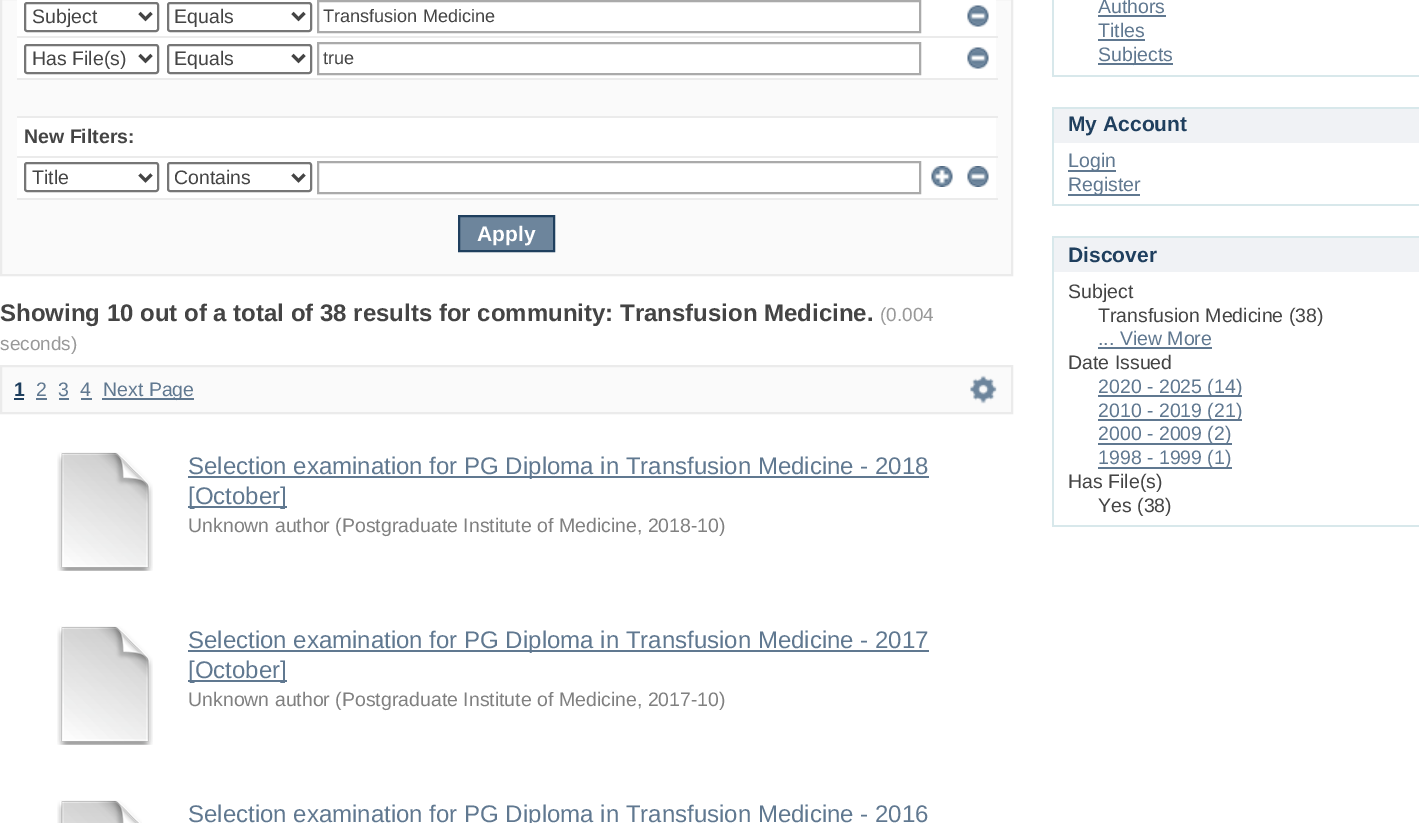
%!PS
<< /PageSize [1419 823] >> setpagedevice
/mt/moveto load def
/li/lineto load def
/cp/closepath load def
/fl/fill load def
/st/stroke load def
/gs/gsave load def
/gr/grestore load def
/lw/setlinewidth load def
/co { dup -16 bitshift 255 div exch dup -8 bitshift 255 and 255 div exch 255 and 255 div setrgbcolor } def
/fn { [ exch dup neg 0 0 3 -1 roll 0 0 ] selectfont } def
/tx { co fn moveto show } def
/bx { co rectfill } def
/rr { 5 dict begin { /r /h /w /y /x } { exch def } forall
  x r add y moveto x w add y 2 copy h add r arct x w add y h add x 1 index r arct
  x y h add x y r arct x y 2 copy exch w add exch r arct closepath end } def
/im { 5 dict begin { /h /w /y /x /name } { exch def } forall
  gsave x y translate w h scale
  w h 8 [w 0 0 h 0 0] name (r) file false 3 colorimage grestore end } def
0 823 translate 1 -1 scale
4 setmiterlimit
0 0 1419 823 16#FFFFFF bx
16#FAFAFA co
1 -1 mt 1012 -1 li 1012 275 li 1 275 li cp gs fl gr
16#EBEBEB co
2 lw
st
17 0 979 198 16#FFFFFF bx
16#767676 co
25 3 133 28 2 rr st
16#444444 co
3 lw
139.5 13 mt 145.5 19 li 151.5 13 li st
16#767676 co
2 lw
168 3 143 28 2 rr st
16#444444 co
3 lw
292.5 13 mt 298.5 19 li 304.5 13 li st
16#AAAAAA co
2 lw
318 1 602 31 rectstroke
(media/1.raw) 967 5 22 22 im
17 36 981 2 16#EBEBEB bx
16#767676 co
25 45 133 28 2 rr st
16#444444 co
3 lw
139.5 55 mt 145.5 61 li 151.5 55 li st
16#767676 co
2 lw
168 45 143 28 2 rr st
16#444444 co
3 lw
292.5 55 mt 298.5 61 li 304.5 55 li st
16#AAAAAA co
2 lw
318 43 602 31 rectstroke
(media/1.raw) 967 47 22 22 im
17 80 979 36 16#FAFAFA bx
17 78 981 2 16#EBEBEB bx
17 116 981 2 16#EBEBEB bx
17 156 981 2 16#EBEBEB bx
16#767676 co
25 163 133 28 2 rr st
16#444444 co
3 lw
139.5 174.5 mt 145.5 180.5 li 151.5 174.5 li st
16#767676 co
2 lw
168 163 143 28 2 rr st
16#444444 co
3 lw
292.5 174.5 mt 298.5 180.5 li 304.5 174.5 li st
16#AAAAAA co
2 lw
318 162 602 31 rectstroke
(media/2.raw) 931 166 22 21 im
(media/3.raw) 967 166 22 21 im
17 198 981 2 16#EBEBEB bx
16#6D859C co
459 216 mt 554 216 li 554 251 li 459 251 li cp gs fl gr
16#1F3F5E co
st
16#FAFAFA co
1 366 mt 1012 366 li 1012 413 li 1 413 li cp gs fl gr
16#EBEBEB co
st
14 398 10 2 16#1F3F5E bx
36 398 11 2 16#607890 bx
59 398 10 2 16#607890 bx
81 398 11 2 16#607890 bx
102 398 92 2 16#607890 bx
(media/4.raw) 970 375 27 29 im
(media/5.raw) 57 452 96 119 im
188 476 741 2 16#607890 bx
188 506 99 2 16#607890 bx
(media/5.raw) 57 626 96 119 im
188 650 741 2 16#607890 bx
188 680 99 2 16#607890 bx
(media/6.raw) 57 800 85 23 im
1052 75 367 2 16#D8E8EB bx
1052 0 2 77 16#D8E8EB bx
1098 15 68 2 16#607890 bx
1098 39 47 2 16#607890 bx
1098 63 75 2 16#607890 bx
1054 109 365 34 16#F0F2F5 bx
1052 107 367 2 16#D8E8EB bx
1052 107 2 36 16#D8E8EB bx
1052 204 367 2 16#D8E8EB bx
1052 143 2 63 16#D8E8EB bx
1068 170 48 2 16#607890 bx
1068 194 72 2 16#607890 bx
1054 238 365 34 16#F0F2F5 bx
1052 236 367 2 16#D8E8EB bx
1052 236 2 36 16#D8E8EB bx
1052 525 367 2 16#D8E8EB bx
1052 272 2 255 16#D8E8EB bx
1098 347 114 2 16#607890 bx
1098 395 144 2 16#607890 bx
1098 419 144 2 16#607890 bx
1098 443 134 2 16#607890 bx
1098 467 134 2 16#607890 bx
(Subject) 32 23 /LiberationSans-Regular 19.5 16#444444 tx
(Equals) 174 23 /LiberationSans-Regular 19.5 16#444444 tx
(Transfusion Medicine) 323 22 /LiberationSans-Regular 18.1 16#444444 tx
(Has File\(s\)) 32 65 /LiberationSans-Regular 19.5 16#444444 tx
(Equals) 174 65 /LiberationSans-Regular 19.5 16#444444 tx
(true) 323 64 /LiberationSans-Regular 18.1 16#444444 tx
(New Filters:) 24 143 /LiberationSans-Bold 19.5 16#444444 tx
(Title) 32 184 /LiberationSans-Regular 19.5 16#444444 tx
(Contains) 174 184 /LiberationSans-Regular 19.5 16#444444 tx
(Apply) 477 241 /LiberationSans-Bold 21 16#FFFFFF tx
(Showing 10 out of a total of 38 results for community: Transfusion Medicine.) 0 321 /LiberationSans-Bold 24 16#444444 tx
(\(0.004) 880 321 /LiberationSans-Regular 19 16#999999 tx
(seconds\)) 0 350 /LiberationSans-Regular 19 16#999999 tx
(1) 14 396 /LiberationSans-Bold 19.5 16#1F3F5E tx
(2) 36 396 /LiberationSans-Regular 19.5 16#607890 tx
(3) 58 396 /LiberationSans-Regular 19.5 16#607890 tx
(4) 80 396 /LiberationSans-Regular 19.5 16#607890 tx
(Next Page) 103 396 /LiberationSans-Regular 19.5 16#607890 tx
(Selection examination for PG Diploma in Transfusion Medicine - 2018) 188 474 /LiberationSans-Regular 24 16#607890 tx
([October]) 188 504 /LiberationSans-Regular 24 16#607890 tx
(Unknown author \(Postgraduate Institute of Medicine, 2018-10\)) 188 532 /LiberationSans-Regular 19.5 16#808080 tx
(Selection examination for PG Diploma in Transfusion Medicine - 2017) 188 648 /LiberationSans-Regular 24 16#607890 tx
([October]) 188 678 /LiberationSans-Regular 24 16#607890 tx
(Unknown author \(Postgraduate Institute of Medicine, 2017-10\)) 188 706 /LiberationSans-Regular 19.5 16#808080 tx
(Selection examination for PG Diploma in Transfusion Medicine - 2016) 188 822 /LiberationSans-Regular 24 16#607890 tx
(Authors) 1098 13 /LiberationSans-Regular 19.5 16#607890 tx
(Titles) 1098 37 /LiberationSans-Regular 19.5 16#607890 tx
(Subjects) 1098 61 /LiberationSans-Regular 19.5 16#607890 tx
(My Account) 1068 131 /LiberationSans-Bold 21 16#1F3F5E tx
(Login) 1068 167 /LiberationSans-Regular 19.5 16#607890 tx
(Register) 1068 191 /LiberationSans-Regular 19.5 16#607890 tx
(Discover) 1068 262 /LiberationSans-Bold 21 16#1F3F5E tx
(Subject) 1068 298 /LiberationSans-Regular 19.5 16#444444 tx
(Transfusion Medicine \(38\)) 1098 322 /LiberationSans-Regular 19.5 16#444444 tx
(... View More) 1098 345 /LiberationSans-Regular 19.5 16#607890 tx
(Date Issued) 1068 369 /LiberationSans-Regular 19.5 16#444444 tx
(2020 - 2025 \(14\)) 1098 393 /LiberationSans-Regular 19.5 16#607890 tx
(2010 - 2019 \(21\)) 1098 417 /LiberationSans-Regular 19.5 16#607890 tx
(2000 - 2009 \(2\)) 1098 440 /LiberationSans-Regular 19.5 16#607890 tx
(1998 - 1999 \(1\)) 1098 464 /LiberationSans-Regular 19.5 16#607890 tx
(Has File\(s\)) 1068 488 /LiberationSans-Regular 19.5 16#444444 tx
(Yes \(38\)) 1098 512 /LiberationSans-Regular 19.5 16#444444 tx
showpage
